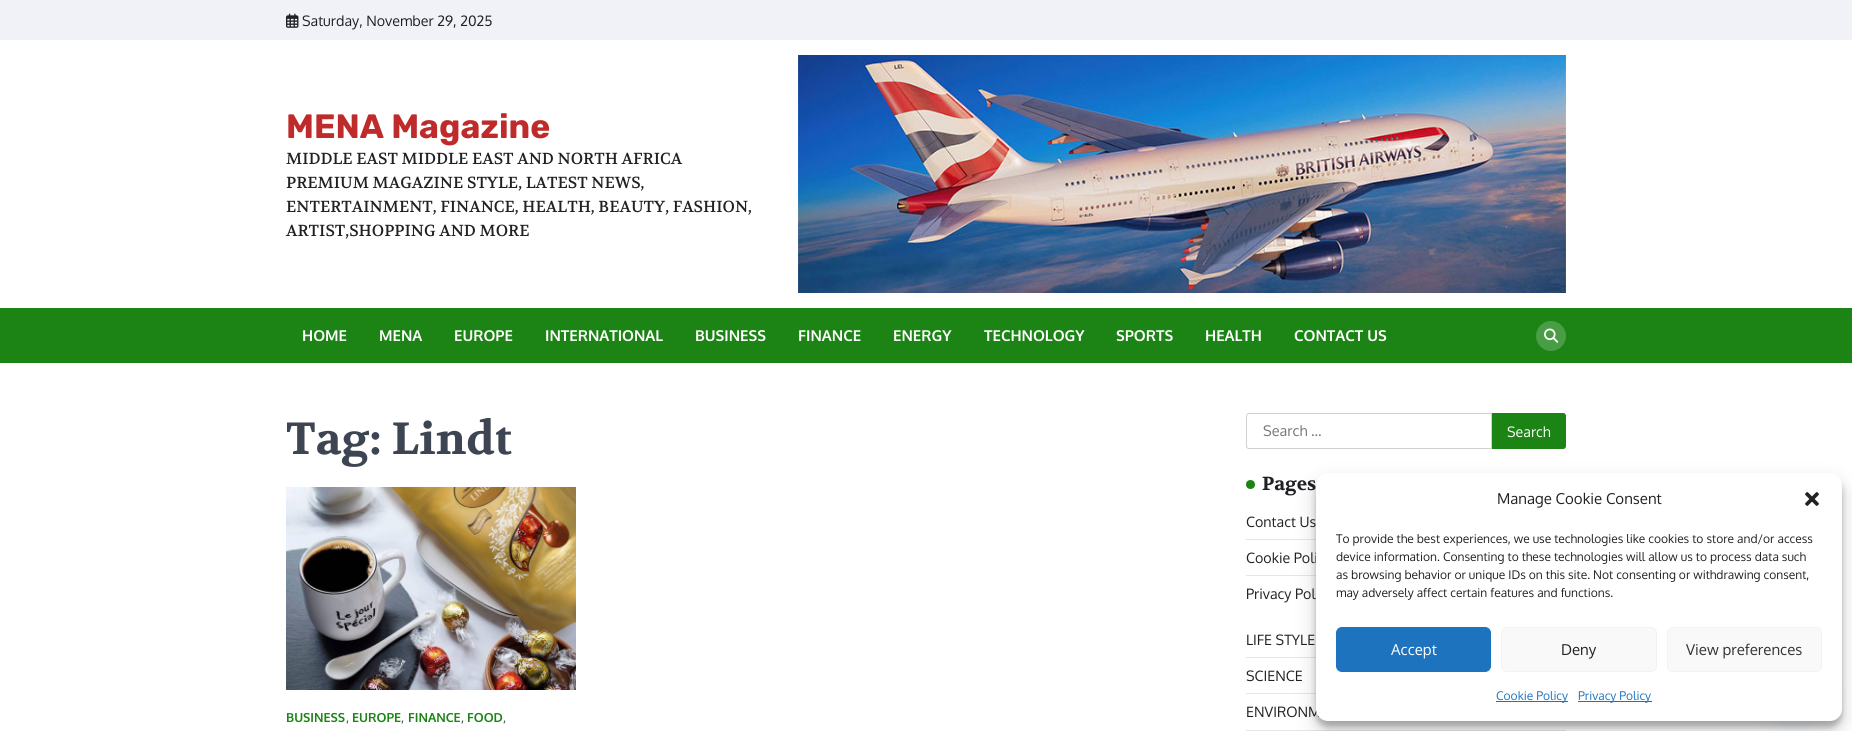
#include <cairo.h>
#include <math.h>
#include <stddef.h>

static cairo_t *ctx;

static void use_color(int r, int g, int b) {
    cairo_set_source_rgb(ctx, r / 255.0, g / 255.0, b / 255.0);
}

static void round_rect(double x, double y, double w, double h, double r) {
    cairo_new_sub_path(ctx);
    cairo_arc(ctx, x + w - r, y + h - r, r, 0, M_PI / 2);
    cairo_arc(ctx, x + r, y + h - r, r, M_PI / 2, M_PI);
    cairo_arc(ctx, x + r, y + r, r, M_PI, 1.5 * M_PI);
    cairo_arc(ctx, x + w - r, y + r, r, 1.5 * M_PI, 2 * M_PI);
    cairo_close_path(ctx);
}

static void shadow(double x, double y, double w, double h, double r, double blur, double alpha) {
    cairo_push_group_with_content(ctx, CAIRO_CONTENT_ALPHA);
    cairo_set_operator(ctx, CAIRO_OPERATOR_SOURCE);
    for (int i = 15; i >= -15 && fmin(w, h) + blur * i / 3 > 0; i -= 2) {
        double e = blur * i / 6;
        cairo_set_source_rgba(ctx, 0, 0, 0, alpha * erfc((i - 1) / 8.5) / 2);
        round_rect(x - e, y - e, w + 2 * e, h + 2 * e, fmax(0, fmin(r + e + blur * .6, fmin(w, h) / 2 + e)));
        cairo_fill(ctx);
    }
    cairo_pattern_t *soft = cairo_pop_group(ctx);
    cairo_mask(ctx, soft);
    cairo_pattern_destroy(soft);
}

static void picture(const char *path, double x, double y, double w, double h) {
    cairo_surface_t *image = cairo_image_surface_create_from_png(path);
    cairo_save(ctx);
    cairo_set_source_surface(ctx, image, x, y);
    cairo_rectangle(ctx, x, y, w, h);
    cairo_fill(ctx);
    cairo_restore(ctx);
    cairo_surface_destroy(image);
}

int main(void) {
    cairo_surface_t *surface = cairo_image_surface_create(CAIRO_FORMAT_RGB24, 1852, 731);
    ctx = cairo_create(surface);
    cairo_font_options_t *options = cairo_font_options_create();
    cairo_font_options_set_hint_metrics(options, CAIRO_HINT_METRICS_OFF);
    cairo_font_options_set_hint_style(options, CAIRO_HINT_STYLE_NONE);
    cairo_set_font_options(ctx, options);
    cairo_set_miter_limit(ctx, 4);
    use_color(255, 255, 255);
    cairo_paint(ctx);
    use_color(240, 242, 247);
    cairo_rectangle(ctx, 0, 0, 1852, 40);
    cairo_fill(ctx);
    picture("img1.png", 286, 13, 13, 15);
    cairo_select_font_face(ctx, "Oxygen", CAIRO_FONT_SLANT_NORMAL, CAIRO_FONT_WEIGHT_NORMAL);
    cairo_set_font_size(ctx, 14.25);
    use_color(32, 33, 36);
    cairo_move_to(ctx, 302, 26);
    cairo_show_text(ctx, "Saturday, November 29, 2025");
    cairo_select_font_face(ctx, "Rubik", CAIRO_FONT_SLANT_NORMAL, CAIRO_FONT_WEIGHT_BOLD);
    cairo_set_font_size(ctx, 33.75);
    use_color(191, 43, 43);
    cairo_move_to(ctx, 286, 138);
    cairo_show_text(ctx, "MENA Magazine");
    cairo_select_font_face(ctx, "Volkhov", CAIRO_FONT_SLANT_NORMAL, CAIRO_FONT_WEIGHT_NORMAL);
    cairo_set_font_size(ctx, 16);
    use_color(32, 33, 36);
    cairo_move_to(ctx, 286, 164);
    cairo_show_text(ctx, "MIDDLE EAST MIDDLE EAST AND NORTH AFRICA");
    cairo_move_to(ctx, 286, 188);
    cairo_show_text(ctx, "PREMIUM MAGAZINE STYLE, LATEST NEWS,");
    cairo_move_to(ctx, 286, 212);
    cairo_show_text(ctx, "ENTERTAINMENT, FINANCE, HEALTH, BEAUTY, FASHION,");
    cairo_move_to(ctx, 286, 236);
    cairo_show_text(ctx, "ARTIST,SHOPPING AND MORE");
    picture("img2.png", 798, 55, 768, 238);
    use_color(27, 132, 21);
    cairo_rectangle(ctx, 0, 308, 1852, 55);
    cairo_fill(ctx);
    cairo_select_font_face(ctx, "Oxygen", CAIRO_FONT_SLANT_NORMAL, CAIRO_FONT_WEIGHT_BOLD);
    cairo_set_font_size(ctx, 15);
    use_color(255, 255, 255);
    cairo_move_to(ctx, 302, 341);
    cairo_show_text(ctx, "HOME");
    cairo_move_to(ctx, 379, 341);
    cairo_show_text(ctx, "MENA");
    cairo_move_to(ctx, 454, 341);
    cairo_show_text(ctx, "EUROPE");
    cairo_move_to(ctx, 545, 341);
    cairo_show_text(ctx, "INTERNATIONAL");
    cairo_move_to(ctx, 695, 341);
    cairo_show_text(ctx, "BUSINESS");
    cairo_move_to(ctx, 798, 341);
    cairo_show_text(ctx, "FINANCE");
    cairo_move_to(ctx, 893, 341);
    cairo_show_text(ctx, "ENERGY");
    cairo_move_to(ctx, 984, 341);
    cairo_show_text(ctx, "TECHNOLOGY");
    cairo_move_to(ctx, 1116, 341);
    cairo_show_text(ctx, "SPORTS");
    cairo_move_to(ctx, 1205, 341);
    cairo_show_text(ctx, "HEALTH");
    cairo_move_to(ctx, 1294, 341);
    cairo_show_text(ctx, "CONTACT US");
    use_color(73, 157, 68);
    cairo_new_path(ctx);
    cairo_arc(ctx, 1551, 336, 15, 0, 2 * M_PI);
    cairo_fill(ctx);
    picture("img3.png", 1544, 328, 15, 15);
    cairo_select_font_face(ctx, "Volkhov", CAIRO_FONT_SLANT_NORMAL, CAIRO_FONT_WEIGHT_BOLD);
    cairo_set_font_size(ctx, 45);
    use_color(61, 68, 82);
    cairo_move_to(ctx, 286, 454);
    cairo_show_text(ctx, "Tag: Lindt");
    picture("img4.png", 286, 487, 290, 203);
    cairo_select_font_face(ctx, "Oxygen", CAIRO_FONT_SLANT_NORMAL, CAIRO_FONT_WEIGHT_BOLD);
    cairo_set_font_size(ctx, 12.5);
    use_color(27, 132, 21);
    cairo_move_to(ctx, 286, 722);
    cairo_show_text(ctx, "BUSINESS");
    cairo_select_font_face(ctx, "Oxygen", CAIRO_FONT_SLANT_NORMAL, CAIRO_FONT_WEIGHT_NORMAL);
    use_color(61, 68, 82);
    cairo_move_to(ctx, 346, 722);
    cairo_show_text(ctx, ",");
    cairo_select_font_face(ctx, "Oxygen", CAIRO_FONT_SLANT_NORMAL, CAIRO_FONT_WEIGHT_BOLD);
    use_color(27, 132, 21);
    cairo_move_to(ctx, 352, 722);
    cairo_show_text(ctx, "EUROPE");
    cairo_select_font_face(ctx, "Oxygen", CAIRO_FONT_SLANT_NORMAL, CAIRO_FONT_WEIGHT_NORMAL);
    use_color(61, 68, 82);
    cairo_move_to(ctx, 401, 722);
    cairo_show_text(ctx, ",");
    cairo_select_font_face(ctx, "Oxygen", CAIRO_FONT_SLANT_NORMAL, CAIRO_FONT_WEIGHT_BOLD);
    use_color(27, 132, 21);
    cairo_move_to(ctx, 408, 722);
    cairo_show_text(ctx, "FINANCE");
    cairo_select_font_face(ctx, "Oxygen", CAIRO_FONT_SLANT_NORMAL, CAIRO_FONT_WEIGHT_NORMAL);
    use_color(61, 68, 82);
    cairo_move_to(ctx, 461, 722);
    cairo_show_text(ctx, ",");
    cairo_select_font_face(ctx, "Oxygen", CAIRO_FONT_SLANT_NORMAL, CAIRO_FONT_WEIGHT_BOLD);
    use_color(27, 132, 21);
    cairo_move_to(ctx, 467, 722);
    cairo_show_text(ctx, "FOOD");
    cairo_select_font_face(ctx, "Oxygen", CAIRO_FONT_SLANT_NORMAL, CAIRO_FONT_WEIGHT_NORMAL);
    use_color(61, 68, 82);
    cairo_move_to(ctx, 503, 722);
    cairo_show_text(ctx, ",");
    cairo_new_path(ctx);
    cairo_move_to(ctx, 1249, 413.5);
    cairo_line_to(ctx, 1491.5, 413.5);
    cairo_line_to(ctx, 1491.5, 448.5);
    cairo_line_to(ctx, 1249, 448.5);
    cairo_curve_to(ctx, 1247.5, 448.5, 1246.5, 447.5, 1246.5, 446);
    cairo_line_to(ctx, 1246.5, 416);
    cairo_curve_to(ctx, 1246.5, 414.5, 1247.5, 413.5, 1249, 413.5);
    cairo_close_path(ctx);
    use_color(211, 206, 210);
    cairo_set_line_width(ctx, 1);
    cairo_stroke(ctx);
    cairo_set_font_size(ctx, 14.5);
    use_color(117, 117, 117);
    cairo_move_to(ctx, 1263, 436);
    cairo_show_text(ctx, "Search …");
    use_color(27, 132, 21);
    cairo_new_path(ctx);
    cairo_move_to(ctx, 1492.5, 413.5);
    cairo_line_to(ctx, 1563, 413.5);
    cairo_curve_to(ctx, 1564.5, 413.5, 1565.5, 414.5, 1565.5, 416);
    cairo_line_to(ctx, 1565.5, 446);
    cairo_curve_to(ctx, 1565.5, 447.5, 1564.5, 448.5, 1563, 448.5);
    cairo_line_to(ctx, 1492.5, 448.5);
    cairo_close_path(ctx);
    cairo_fill_preserve(ctx);
    cairo_stroke(ctx);
    cairo_set_font_size(ctx, 14.25);
    use_color(255, 255, 255);
    cairo_move_to(ctx, 1507, 437);
    cairo_show_text(ctx, "Search");
    use_color(27, 132, 21);
    cairo_new_path(ctx);
    cairo_arc(ctx, 1250.5, 484.5, 4.5, 0, 2 * M_PI);
    cairo_fill(ctx);
    cairo_select_font_face(ctx, "Volkhov", CAIRO_FONT_SLANT_NORMAL, CAIRO_FONT_WEIGHT_BOLD);
    cairo_set_font_size(ctx, 19);
    use_color(32, 33, 36);
    cairo_move_to(ctx, 1262, 490);
    cairo_show_text(ctx, "Pages");
    use_color(230, 230, 230);
    cairo_rectangle(ctx, 1246, 539, 70, 1);
    cairo_fill(ctx);
    cairo_select_font_face(ctx, "Oxygen", CAIRO_FONT_SLANT_NORMAL, CAIRO_FONT_WEIGHT_NORMAL);
    cairo_set_font_size(ctx, 14.25);
    use_color(32, 33, 36);
    cairo_move_to(ctx, 1246, 527);
    cairo_show_text(ctx, "Contact Us");
    use_color(230, 230, 230);
    cairo_rectangle(ctx, 1246, 575, 70, 1);
    cairo_fill(ctx);
    use_color(32, 33, 36);
    cairo_move_to(ctx, 1246, 563);
    cairo_show_text(ctx, "Cookie Poli");
    cairo_move_to(ctx, 1246, 599);
    cairo_show_text(ctx, "Privacy Pol");
    use_color(230, 230, 230);
    cairo_rectangle(ctx, 1246, 657, 70, 1);
    cairo_fill(ctx);
    use_color(32, 33, 36);
    cairo_move_to(ctx, 1246, 645);
    cairo_show_text(ctx, "LIFE STYLE");
    use_color(230, 230, 230);
    cairo_rectangle(ctx, 1246, 693, 70, 1);
    cairo_fill(ctx);
    use_color(32, 33, 36);
    cairo_move_to(ctx, 1246, 681);
    cairo_show_text(ctx, "SCIENCE");
    use_color(230, 230, 230);
    cairo_rectangle(ctx, 1246, 730, 320, 1);
    cairo_fill(ctx);
    use_color(32, 33, 36);
    cairo_move_to(ctx, 1246, 717);
    cairo_show_text(ctx, "ENVIRONM");
    use_color(0, 0, 0);
    shadow(1316, 479, 526, 248, 12, 3, 0.23);
    shadow(1316, 483, 526, 248, 12, 10, 0.19);
    use_color(73, 104, 126);
    shadow(1769, 668, 54, 54, 27, 12, 0.16);
    use_color(255, 255, 255);
    round_rect(1316, 473, 526, 248, 12);
    cairo_fill(ctx);
    cairo_set_font_size(ctx, 15);
    use_color(32, 33, 36);
    cairo_move_to(ctx, 1497, 504);
    cairo_show_text(ctx, "Manage Cookie Consent");
    picture("img5.png", 1805, 492, 14, 14);
    cairo_set_font_size(ctx, 12);
    cairo_move_to(ctx, 1336, 543);
    cairo_show_text(ctx, "To provide the best experiences, we use technologies like cookies to store and/or access");
    cairo_move_to(ctx, 1336, 561);
    cairo_show_text(ctx, "device information. Consenting to these technologies will allow us to process data such");
    cairo_move_to(ctx, 1336, 579);
    cairo_show_text(ctx, "as browsing behavior or unique IDs on this site. Not consenting or withdrawing consent,");
    cairo_move_to(ctx, 1336, 597);
    cairo_show_text(ctx, "may adversely affect certain features and functions.");
    use_color(30, 115, 190);
    round_rect(1336.5, 627.5, 154, 44, 5.5);
    cairo_fill_preserve(ctx);
    cairo_stroke(ctx);
    cairo_set_font_size(ctx, 15);
    use_color(255, 255, 255);
    cairo_move_to(ctx, 1391, 655);
    cairo_show_text(ctx, "Accept");
    use_color(249, 249, 249);
    round_rect(1501.5, 627.5, 155, 44, 5.5);
    cairo_fill_preserve(ctx);
    use_color(242, 242, 242);
    cairo_stroke(ctx);
    use_color(32, 33, 36);
    cairo_move_to(ctx, 1561, 655);
    cairo_show_text(ctx, "Deny");
    use_color(249, 249, 249);
    round_rect(1667.5, 627.5, 154, 44, 5.5);
    cairo_fill_preserve(ctx);
    use_color(242, 242, 242);
    cairo_stroke(ctx);
    use_color(51, 51, 51);
    cairo_move_to(ctx, 1686, 655);
    cairo_show_text(ctx, "View preferences");
    use_color(30, 115, 190);
    cairo_rectangle(ctx, 1496, 701, 72, 1);
    cairo_fill(ctx);
    cairo_set_font_size(ctx, 12);
    cairo_move_to(ctx, 1496, 700);
    cairo_show_text(ctx, "Cookie Policy");
    cairo_rectangle(ctx, 1578, 701, 74, 1);
    cairo_fill(ctx);
    cairo_move_to(ctx, 1578, 700);
    cairo_show_text(ctx, "Privacy Policy");
    cairo_surface_write_to_png(surface, "result.png");
    cairo_font_options_destroy(options);
    cairo_destroy(ctx);
    cairo_surface_destroy(surface);
    return 0;
}
